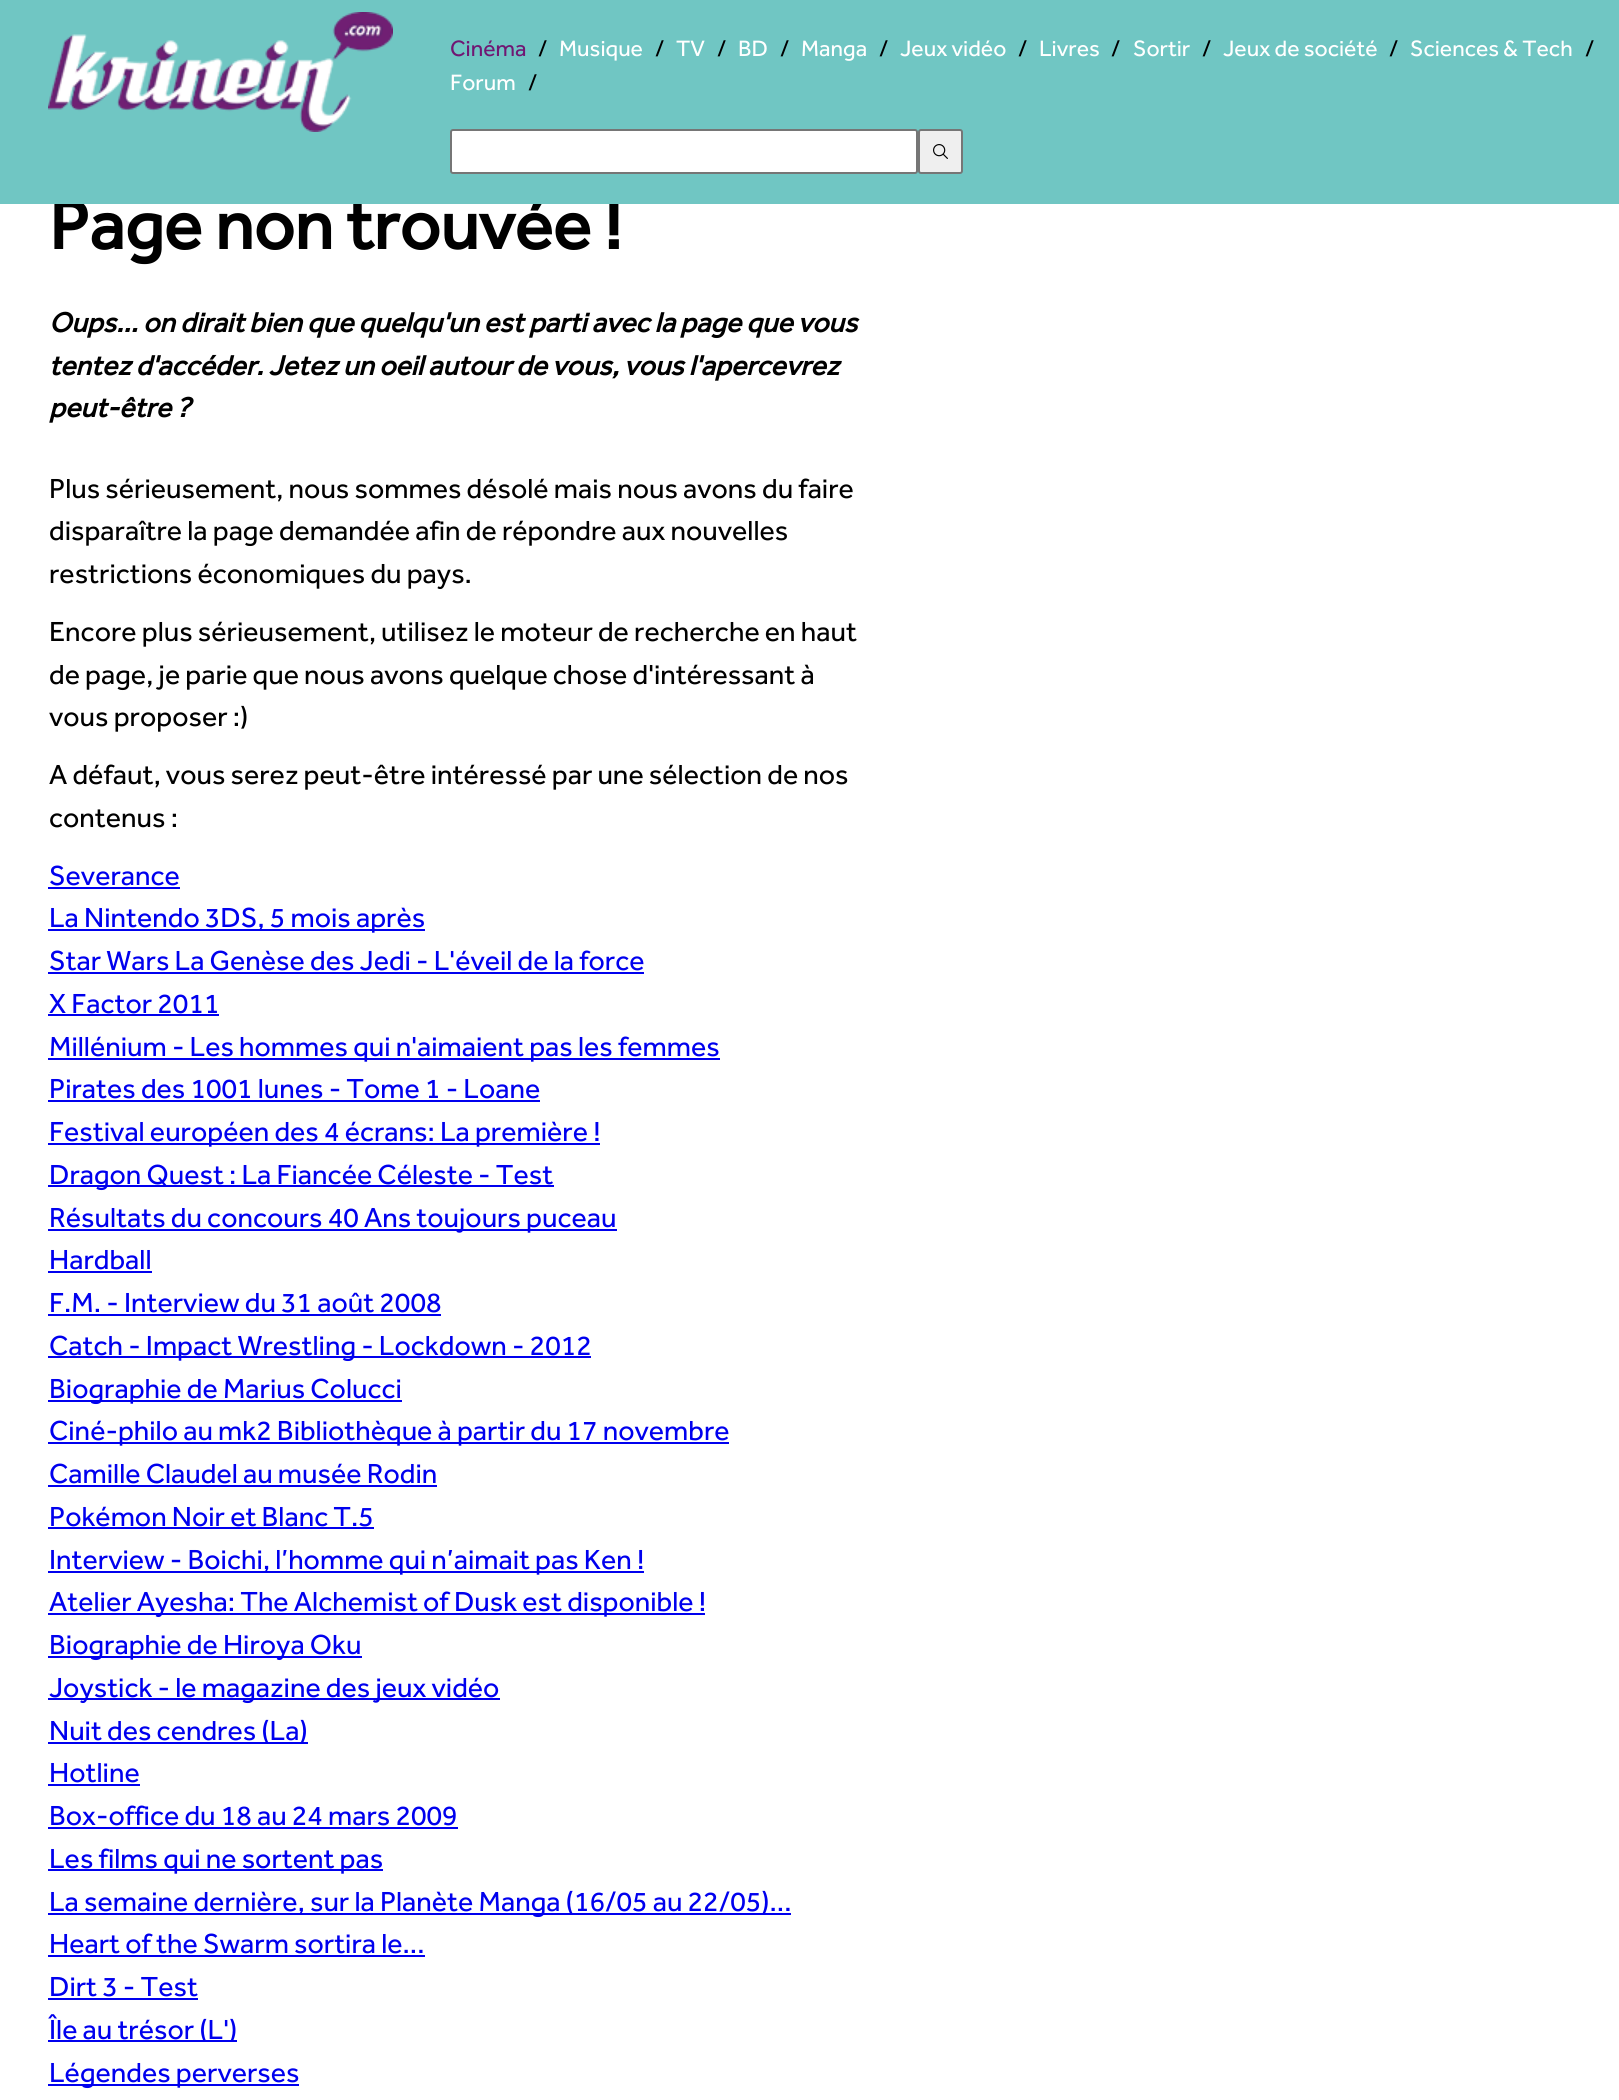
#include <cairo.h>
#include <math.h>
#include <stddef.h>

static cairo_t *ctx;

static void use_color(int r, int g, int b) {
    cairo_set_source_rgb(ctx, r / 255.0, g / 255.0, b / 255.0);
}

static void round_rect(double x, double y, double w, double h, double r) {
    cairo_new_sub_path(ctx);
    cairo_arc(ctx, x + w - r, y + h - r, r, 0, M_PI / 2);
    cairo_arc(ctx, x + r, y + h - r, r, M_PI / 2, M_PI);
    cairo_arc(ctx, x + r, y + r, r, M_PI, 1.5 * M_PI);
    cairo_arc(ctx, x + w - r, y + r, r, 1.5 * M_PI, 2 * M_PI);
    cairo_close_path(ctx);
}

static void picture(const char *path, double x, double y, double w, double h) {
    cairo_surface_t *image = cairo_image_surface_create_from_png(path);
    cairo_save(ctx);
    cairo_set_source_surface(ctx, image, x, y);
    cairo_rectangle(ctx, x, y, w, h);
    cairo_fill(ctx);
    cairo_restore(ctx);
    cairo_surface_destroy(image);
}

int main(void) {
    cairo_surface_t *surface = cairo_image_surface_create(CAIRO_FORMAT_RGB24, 1619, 2100);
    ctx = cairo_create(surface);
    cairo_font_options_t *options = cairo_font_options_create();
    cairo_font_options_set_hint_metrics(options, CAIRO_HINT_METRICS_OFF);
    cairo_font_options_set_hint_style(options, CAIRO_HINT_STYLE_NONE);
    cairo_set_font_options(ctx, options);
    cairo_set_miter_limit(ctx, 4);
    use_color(255, 255, 255);
    cairo_paint(ctx);
    cairo_select_font_face(ctx, "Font", CAIRO_FONT_SLANT_NORMAL, CAIRO_FONT_WEIGHT_BOLD);
    cairo_set_font_size(ctx, 71.25);
    use_color(0, 0, 0);
    cairo_move_to(ctx, 49, 249);
    cairo_show_text(ctx, "Page non trouvée !");
    use_color(112, 198, 195);
    cairo_rectangle(ctx, 0, 0, 1619, 204);
    cairo_fill(ctx);
    picture("img1.png", 48, 12, 345, 120);
    cairo_select_font_face(ctx, "Font", CAIRO_FONT_SLANT_NORMAL, CAIRO_FONT_WEIGHT_NORMAL);
    cairo_set_font_size(ctx, 23);
    use_color(112, 23, 115);
    cairo_move_to(ctx, 450, 56);
    cairo_show_text(ctx, "Cinéma");
    use_color(0, 0, 0);
    cairo_move_to(ctx, 538, 56);
    cairo_show_text(ctx, "/");
    use_color(255, 255, 255);
    cairo_move_to(ctx, 559, 56);
    cairo_show_text(ctx, "Musique");
    use_color(0, 0, 0);
    cairo_move_to(ctx, 655, 56);
    cairo_show_text(ctx, "/");
    use_color(255, 255, 255);
    cairo_move_to(ctx, 676, 56);
    cairo_show_text(ctx, "TV");
    use_color(0, 0, 0);
    cairo_move_to(ctx, 717, 56);
    cairo_show_text(ctx, "/");
    use_color(255, 255, 255);
    cairo_move_to(ctx, 738, 56);
    cairo_show_text(ctx, "BD");
    use_color(0, 0, 0);
    cairo_move_to(ctx, 780, 56);
    cairo_show_text(ctx, "/");
    use_color(255, 255, 255);
    cairo_move_to(ctx, 801, 56);
    cairo_show_text(ctx, "Manga");
    use_color(0, 0, 0);
    cairo_move_to(ctx, 879, 56);
    cairo_show_text(ctx, "/");
    use_color(255, 255, 255);
    cairo_move_to(ctx, 900, 56);
    cairo_show_text(ctx, "Jeux vidéo");
    use_color(0, 0, 0);
    cairo_move_to(ctx, 1018, 56);
    cairo_show_text(ctx, "/");
    use_color(255, 255, 255);
    cairo_move_to(ctx, 1039, 56);
    cairo_show_text(ctx, "Livres");
    use_color(0, 0, 0);
    cairo_move_to(ctx, 1111, 56);
    cairo_show_text(ctx, "/");
    use_color(255, 255, 255);
    cairo_move_to(ctx, 1133, 56);
    cairo_show_text(ctx, "Sortir");
    use_color(0, 0, 0);
    cairo_move_to(ctx, 1202, 56);
    cairo_show_text(ctx, "/");
    use_color(255, 255, 255);
    cairo_move_to(ctx, 1223, 56);
    cairo_show_text(ctx, "Jeux de société");
    use_color(0, 0, 0);
    cairo_move_to(ctx, 1389, 56);
    cairo_show_text(ctx, "/");
    use_color(255, 255, 255);
    cairo_move_to(ctx, 1410, 56);
    cairo_show_text(ctx, "Sciences & Tech");
    use_color(0, 0, 0);
    cairo_move_to(ctx, 1585, 56);
    cairo_show_text(ctx, "/");
    use_color(255, 255, 255);
    cairo_move_to(ctx, 450, 90);
    cairo_show_text(ctx, "Forum");
    use_color(0, 0, 0);
    cairo_move_to(ctx, 528, 90);
    cairo_show_text(ctx, "/");
    use_color(255, 255, 255);
    round_rect(451, 130, 466, 43, 2);
    cairo_fill_preserve(ctx);
    use_color(118, 118, 118);
    cairo_stroke(ctx);
    use_color(239, 239, 239);
    round_rect(919, 130, 43, 43, 2);
    cairo_fill_preserve(ctx);
    use_color(118, 118, 118);
    cairo_stroke(ctx);
    picture("img2.png", 933, 144, 15, 15);
    cairo_select_font_face(ctx, "Font", CAIRO_FONT_SLANT_ITALIC, CAIRO_FONT_WEIGHT_BOLD);
    cairo_set_font_size(ctx, 28.5);
    use_color(0, 0, 0);
    cairo_move_to(ctx, 49, 332);
    cairo_show_text(ctx, "Oups... on dirait bien que quelqu'un est parti avec la page que vous");
    cairo_move_to(ctx, 49, 375);
    cairo_show_text(ctx, "tentez d'accéder. Jetez un oeil autour de vous, vous l'apercevrez");
    cairo_move_to(ctx, 49, 417);
    cairo_show_text(ctx, "peut-être ?");
    cairo_select_font_face(ctx, "Font", CAIRO_FONT_SLANT_NORMAL, CAIRO_FONT_WEIGHT_NORMAL);
    cairo_move_to(ctx, 49, 498);
    cairo_show_text(ctx, "Plus sérieusement, nous sommes désolé mais nous avons du faire");
    cairo_move_to(ctx, 49, 540);
    cairo_show_text(ctx, "disparaître la page demandée afin de répondre aux nouvelles");
    cairo_move_to(ctx, 49, 583);
    cairo_show_text(ctx, "restrictions économiques du pays.");
    cairo_move_to(ctx, 49, 641);
    cairo_show_text(ctx, "Encore plus sérieusement, utilisez le moteur de recherche en haut");
    cairo_move_to(ctx, 49, 684);
    cairo_show_text(ctx, "de page, je parie que nous avons quelque chose d'intéressant à");
    cairo_move_to(ctx, 49, 726);
    cairo_show_text(ctx, "vous proposer :)");
    cairo_move_to(ctx, 49, 784);
    cairo_show_text(ctx, "A défaut, vous serez peut-être intéressé par une sélection de nos");
    cairo_move_to(ctx, 49, 827);
    cairo_show_text(ctx, "contenus :");
    use_color(0, 0, 238);
    cairo_move_to(ctx, 49, 885);
    cairo_show_text(ctx, "Severance");
    cairo_rectangle(ctx, 48, 887, 132, 2);
    cairo_fill(ctx);
    cairo_rectangle(ctx, 48, 929, 377, 2);
    cairo_fill(ctx);
    cairo_move_to(ctx, 49, 927);
    cairo_show_text(ctx, "La Nintendo 3DS, 5 mois après");
    cairo_move_to(ctx, 49, 970);
    cairo_show_text(ctx, "Star Wars La Genèse des Jedi - L'éveil de la force");
    cairo_rectangle(ctx, 48, 972, 596, 2);
    cairo_fill(ctx);
    cairo_move_to(ctx, 49, 1013);
    cairo_show_text(ctx, "X Factor 2011");
    cairo_rectangle(ctx, 48, 1014, 171, 2);
    cairo_fill(ctx);
    cairo_rectangle(ctx, 48, 1058, 672, 2);
    cairo_fill(ctx);
    cairo_move_to(ctx, 49, 1056);
    cairo_show_text(ctx, "Millénium - Les hommes qui n'aimaient pas les femmes");
    cairo_move_to(ctx, 49, 1098);
    cairo_show_text(ctx, "Pirates des 1001 lunes - Tome 1 - Loane");
    cairo_rectangle(ctx, 48, 1100, 492, 2);
    cairo_fill(ctx);
    cairo_rectangle(ctx, 48, 1143, 552, 2);
    cairo_fill(ctx);
    cairo_move_to(ctx, 49, 1141);
    cairo_show_text(ctx, "Festival européen des 4 écrans: La première !");
    cairo_rectangle(ctx, 48, 1185, 506, 2);
    cairo_fill(ctx);
    cairo_move_to(ctx, 49, 1184);
    cairo_show_text(ctx, "Dragon Quest : La Fiancée Céleste - Test");
    cairo_rectangle(ctx, 48, 1229, 569, 2);
    cairo_fill(ctx);
    cairo_move_to(ctx, 49, 1227);
    cairo_show_text(ctx, "Résultats du concours 40 Ans toujours puceau");
    cairo_move_to(ctx, 49, 1269);
    cairo_show_text(ctx, "Hardball");
    cairo_rectangle(ctx, 48, 1271, 104, 2);
    cairo_fill(ctx);
    cairo_move_to(ctx, 49, 1312);
    cairo_show_text(ctx, "F.M. - Interview du 31 août 2008");
    cairo_rectangle(ctx, 48, 1314, 393, 2);
    cairo_fill(ctx);
    cairo_rectangle(ctx, 48, 1356, 543, 2);
    cairo_fill(ctx);
    cairo_move_to(ctx, 49, 1355);
    cairo_show_text(ctx, "Catch - Impact Wrestling - Lockdown - 2012");
    cairo_rectangle(ctx, 48, 1400, 354, 2);
    cairo_fill(ctx);
    cairo_move_to(ctx, 49, 1398);
    cairo_show_text(ctx, "Biographie de Marius Colucci");
    cairo_rectangle(ctx, 48, 1442, 681, 2);
    cairo_fill(ctx);
    cairo_move_to(ctx, 49, 1440);
    cairo_show_text(ctx, "Ciné-philo au mk2 Bibliothèque à partir du 17 novembre");
    cairo_move_to(ctx, 49, 1483);
    cairo_show_text(ctx, "Camille Claudel au musée Rodin");
    cairo_rectangle(ctx, 48, 1485, 389, 2);
    cairo_fill(ctx);
    cairo_move_to(ctx, 49, 1526);
    cairo_show_text(ctx, "Pokémon Noir et Blanc T.5");
    cairo_rectangle(ctx, 48, 1527, 326, 2);
    cairo_fill(ctx);
    cairo_rectangle(ctx, 48, 1571, 596, 2);
    cairo_fill(ctx);
    cairo_move_to(ctx, 49, 1569);
    cairo_show_text(ctx, "Interview - Boichi, l’homme qui n’aimait pas Ken !");
    cairo_rectangle(ctx, 48, 1613, 657, 2);
    cairo_fill(ctx);
    cairo_move_to(ctx, 49, 1611);
    cairo_show_text(ctx, "Atelier Ayesha: The Alchemist of Dusk est disponible !");
    cairo_rectangle(ctx, 48, 1656, 314, 2);
    cairo_fill(ctx);
    cairo_move_to(ctx, 49, 1654);
    cairo_show_text(ctx, "Biographie de Hiroya Oku");
    cairo_rectangle(ctx, 48, 1698, 452, 2);
    cairo_fill(ctx);
    cairo_move_to(ctx, 49, 1697);
    cairo_show_text(ctx, "Joystick - le magazine des jeux vidéo");
    cairo_rectangle(ctx, 48, 1742, 260, 2);
    cairo_fill(ctx);
    cairo_move_to(ctx, 49, 1740);
    cairo_show_text(ctx, "Nuit des cendres (La)");
    cairo_move_to(ctx, 49, 1782);
    cairo_show_text(ctx, "Hotline");
    cairo_rectangle(ctx, 48, 1784, 92, 2);
    cairo_fill(ctx);
    cairo_move_to(ctx, 49, 1825);
    cairo_show_text(ctx, "Box-office du 18 au 24 mars 2009");
    cairo_rectangle(ctx, 48, 1827, 410, 2);
    cairo_fill(ctx);
    cairo_rectangle(ctx, 48, 1869, 335, 2);
    cairo_fill(ctx);
    cairo_move_to(ctx, 49, 1868);
    cairo_show_text(ctx, "Les films qui ne sortent pas");
    cairo_rectangle(ctx, 48, 1913, 743, 2);
    cairo_fill(ctx);
    cairo_move_to(ctx, 49, 1911);
    cairo_show_text(ctx, "La semaine dernière, sur la Planète Manga (16/05 au 22/05)...");
    cairo_move_to(ctx, 49, 1953);
    cairo_show_text(ctx, "Heart of the Swarm sortira le...");
    cairo_rectangle(ctx, 48, 1955, 377, 2);
    cairo_fill(ctx);
    cairo_move_to(ctx, 49, 1996);
    cairo_show_text(ctx, "Dirt 3 - Test");
    cairo_rectangle(ctx, 48, 1998, 150, 2);
    cairo_fill(ctx);
    cairo_rectangle(ctx, 48, 2040, 189, 2);
    cairo_fill(ctx);
    cairo_move_to(ctx, 49, 2039);
    cairo_show_text(ctx, "Île au trésor (L')");
    cairo_rectangle(ctx, 48, 2084, 251, 2);
    cairo_fill(ctx);
    cairo_move_to(ctx, 49, 2082);
    cairo_show_text(ctx, "Légendes perverses");
    cairo_surface_write_to_png(surface, "result.png");
    cairo_font_options_destroy(options);
    cairo_destroy(ctx);
    cairo_surface_destroy(surface);
    return 0;
}
